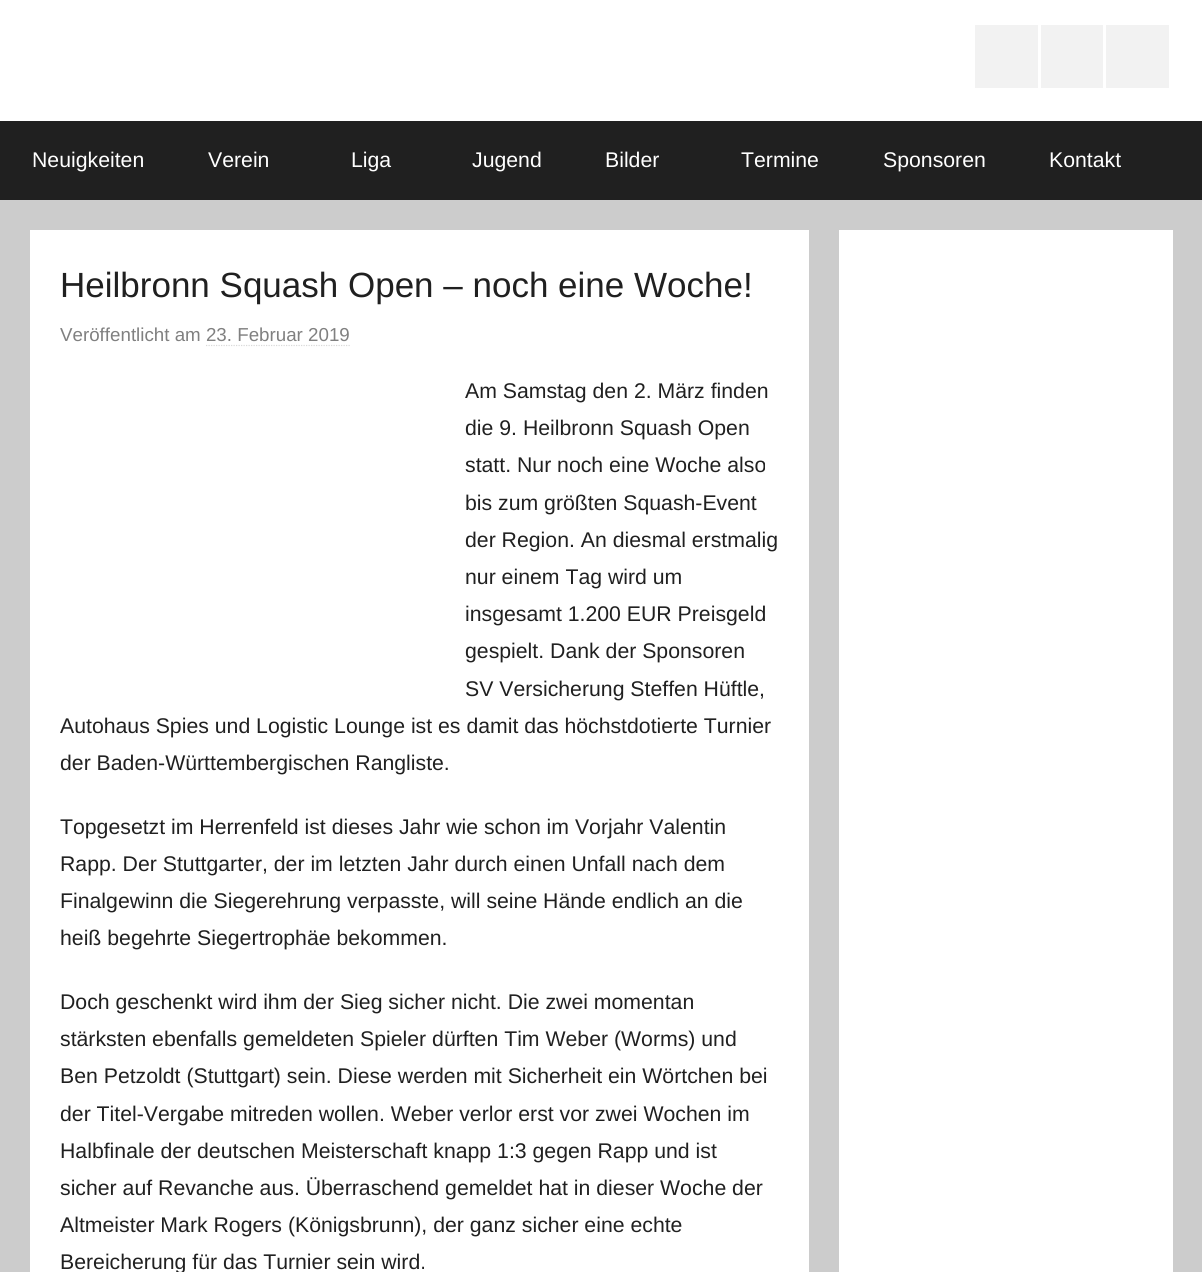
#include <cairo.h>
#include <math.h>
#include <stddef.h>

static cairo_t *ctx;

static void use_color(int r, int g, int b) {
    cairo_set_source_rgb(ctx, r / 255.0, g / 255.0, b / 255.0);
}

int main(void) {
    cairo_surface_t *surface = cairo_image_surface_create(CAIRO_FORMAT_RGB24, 1202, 1272);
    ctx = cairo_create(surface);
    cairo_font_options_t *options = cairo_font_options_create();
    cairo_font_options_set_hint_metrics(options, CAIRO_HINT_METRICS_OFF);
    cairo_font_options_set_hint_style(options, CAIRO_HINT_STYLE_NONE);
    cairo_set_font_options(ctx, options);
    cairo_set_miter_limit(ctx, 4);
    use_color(204, 204, 204);
    cairo_paint(ctx);
    use_color(255, 255, 255);
    cairo_rectangle(ctx, 0, 0, 1202, 121);
    cairo_fill(ctx);
    use_color(242, 242, 242);
    cairo_rectangle(ctx, 975, 25, 63, 63);
    cairo_fill(ctx);
    cairo_rectangle(ctx, 1041, 25, 62, 63);
    cairo_fill(ctx);
    cairo_rectangle(ctx, 1106, 25, 63, 63);
    cairo_fill(ctx);
    use_color(32, 32, 32);
    cairo_rectangle(ctx, 0, 121, 1202, 79);
    cairo_fill(ctx);
    cairo_select_font_face(ctx, "Liberation Sans", CAIRO_FONT_SLANT_NORMAL, CAIRO_FONT_WEIGHT_NORMAL);
    cairo_set_font_size(ctx, 21.25);
    use_color(255, 255, 255);
    cairo_move_to(ctx, 32, 167);
    cairo_show_text(ctx, "Neuigkeiten");
    cairo_move_to(ctx, 208, 167);
    cairo_show_text(ctx, "Verein");
    cairo_move_to(ctx, 351, 167);
    cairo_show_text(ctx, "Liga");
    cairo_move_to(ctx, 472, 167);
    cairo_show_text(ctx, "Jugend");
    cairo_move_to(ctx, 605, 167);
    cairo_show_text(ctx, "Bilder");
    cairo_move_to(ctx, 741, 167);
    cairo_show_text(ctx, "Termine");
    cairo_move_to(ctx, 883, 167);
    cairo_show_text(ctx, "Sponsoren");
    cairo_move_to(ctx, 1049, 167);
    cairo_show_text(ctx, "Kontakt");
    cairo_rectangle(ctx, 30, 230, 779, 1042);
    cairo_fill(ctx);
    cairo_set_font_size(ctx, 35);
    use_color(32, 32, 32);
    cairo_move_to(ctx, 60, 297);
    cairo_show_text(ctx, "Heilbronn Squash Open – noch eine Woche!");
    cairo_set_font_size(ctx, 18.75);
    use_color(128, 128, 128);
    cairo_move_to(ctx, 60, 341);
    cairo_show_text(ctx, "Veröffentlicht am 23. Februar 2019");
    cairo_new_path(ctx);
    cairo_move_to(ctx, 206, 345.5);
    cairo_line_to(ctx, 350, 345.5);
    use_color(217, 217, 217);
    cairo_set_line_width(ctx, 1.2);
    cairo_set_dash(ctx, (double[]){1.25, 1.25}, 2, 0);
    cairo_stroke(ctx);
    cairo_set_font_size(ctx, 21.25);
    use_color(32, 32, 32);
    cairo_move_to(ctx, 465, 398);
    cairo_show_text(ctx, "Am Samstag den 2. März finden");
    cairo_move_to(ctx, 465, 435);
    cairo_show_text(ctx, "die 9. Heilbronn Squash Open");
    cairo_move_to(ctx, 465, 472);
    cairo_show_text(ctx, "statt. Nur noch eine Woche also");
    cairo_move_to(ctx, 465, 510);
    cairo_show_text(ctx, "bis zum größten Squash-Event");
    cairo_move_to(ctx, 465, 547);
    cairo_show_text(ctx, "der Region. An diesmal erstmalig");
    cairo_move_to(ctx, 465, 584);
    cairo_show_text(ctx, "nur einem Tag wird um");
    cairo_move_to(ctx, 465, 621);
    cairo_show_text(ctx, "insgesamt 1.200 EUR Preisgeld");
    cairo_move_to(ctx, 465, 658);
    cairo_show_text(ctx, "gespielt. Dank der Sponsoren");
    cairo_move_to(ctx, 465, 696);
    cairo_show_text(ctx, "SV Versicherung Steffen Hüftle,");
    cairo_move_to(ctx, 60, 733);
    cairo_show_text(ctx, "Autohaus Spies und Logistic Lounge ist es damit das höchstdotierte Turnier");
    cairo_move_to(ctx, 60, 770);
    cairo_show_text(ctx, "der Baden-Württembergischen Rangliste.");
    cairo_move_to(ctx, 60, 834);
    cairo_show_text(ctx, "Topgesetzt im Herrenfeld ist dieses Jahr wie schon im Vorjahr Valentin");
    cairo_move_to(ctx, 60, 871);
    cairo_show_text(ctx, "Rapp. Der Stuttgarter, der im letzten Jahr durch einen Unfall nach dem");
    cairo_move_to(ctx, 60, 908);
    cairo_show_text(ctx, "Finalgewinn die Siegerehrung verpasste, will seine Hände endlich an die");
    cairo_move_to(ctx, 60, 945);
    cairo_show_text(ctx, "heiß begehrte Siegertrophäe bekommen.");
    cairo_move_to(ctx, 60, 1009);
    cairo_show_text(ctx, "Doch geschenkt wird ihm der Sieg sicher nicht. Die zwei momentan");
    cairo_move_to(ctx, 60, 1046);
    cairo_show_text(ctx, "stärksten ebenfalls gemeldeten Spieler dürften Tim Weber (Worms) und");
    cairo_move_to(ctx, 60, 1083);
    cairo_show_text(ctx, "Ben Petzoldt (Stuttgart) sein. Diese werden mit Sicherheit ein Wörtchen bei");
    cairo_move_to(ctx, 60, 1121);
    cairo_show_text(ctx, "der Titel-Vergabe mitreden wollen. Weber verlor erst vor zwei Wochen im");
    cairo_move_to(ctx, 60, 1158);
    cairo_show_text(ctx, "Halbfinale der deutschen Meisterschaft knapp 1:3 gegen Rapp und ist");
    cairo_move_to(ctx, 60, 1195);
    cairo_show_text(ctx, "sicher auf Revanche aus. Überraschend gemeldet hat in dieser Woche der");
    cairo_move_to(ctx, 60, 1232);
    cairo_show_text(ctx, "Altmeister Mark Rogers (Königsbrunn), der ganz sicher eine echte");
    cairo_move_to(ctx, 60, 1269);
    cairo_show_text(ctx, "Bereicherung für das Turnier sein wird.");
    use_color(255, 255, 255);
    cairo_rectangle(ctx, 839, 230, 334, 1042);
    cairo_fill(ctx);
    cairo_surface_write_to_png(surface, "result.png");
    cairo_font_options_destroy(options);
    cairo_destroy(ctx);
    cairo_surface_destroy(surface);
    return 0;
}
